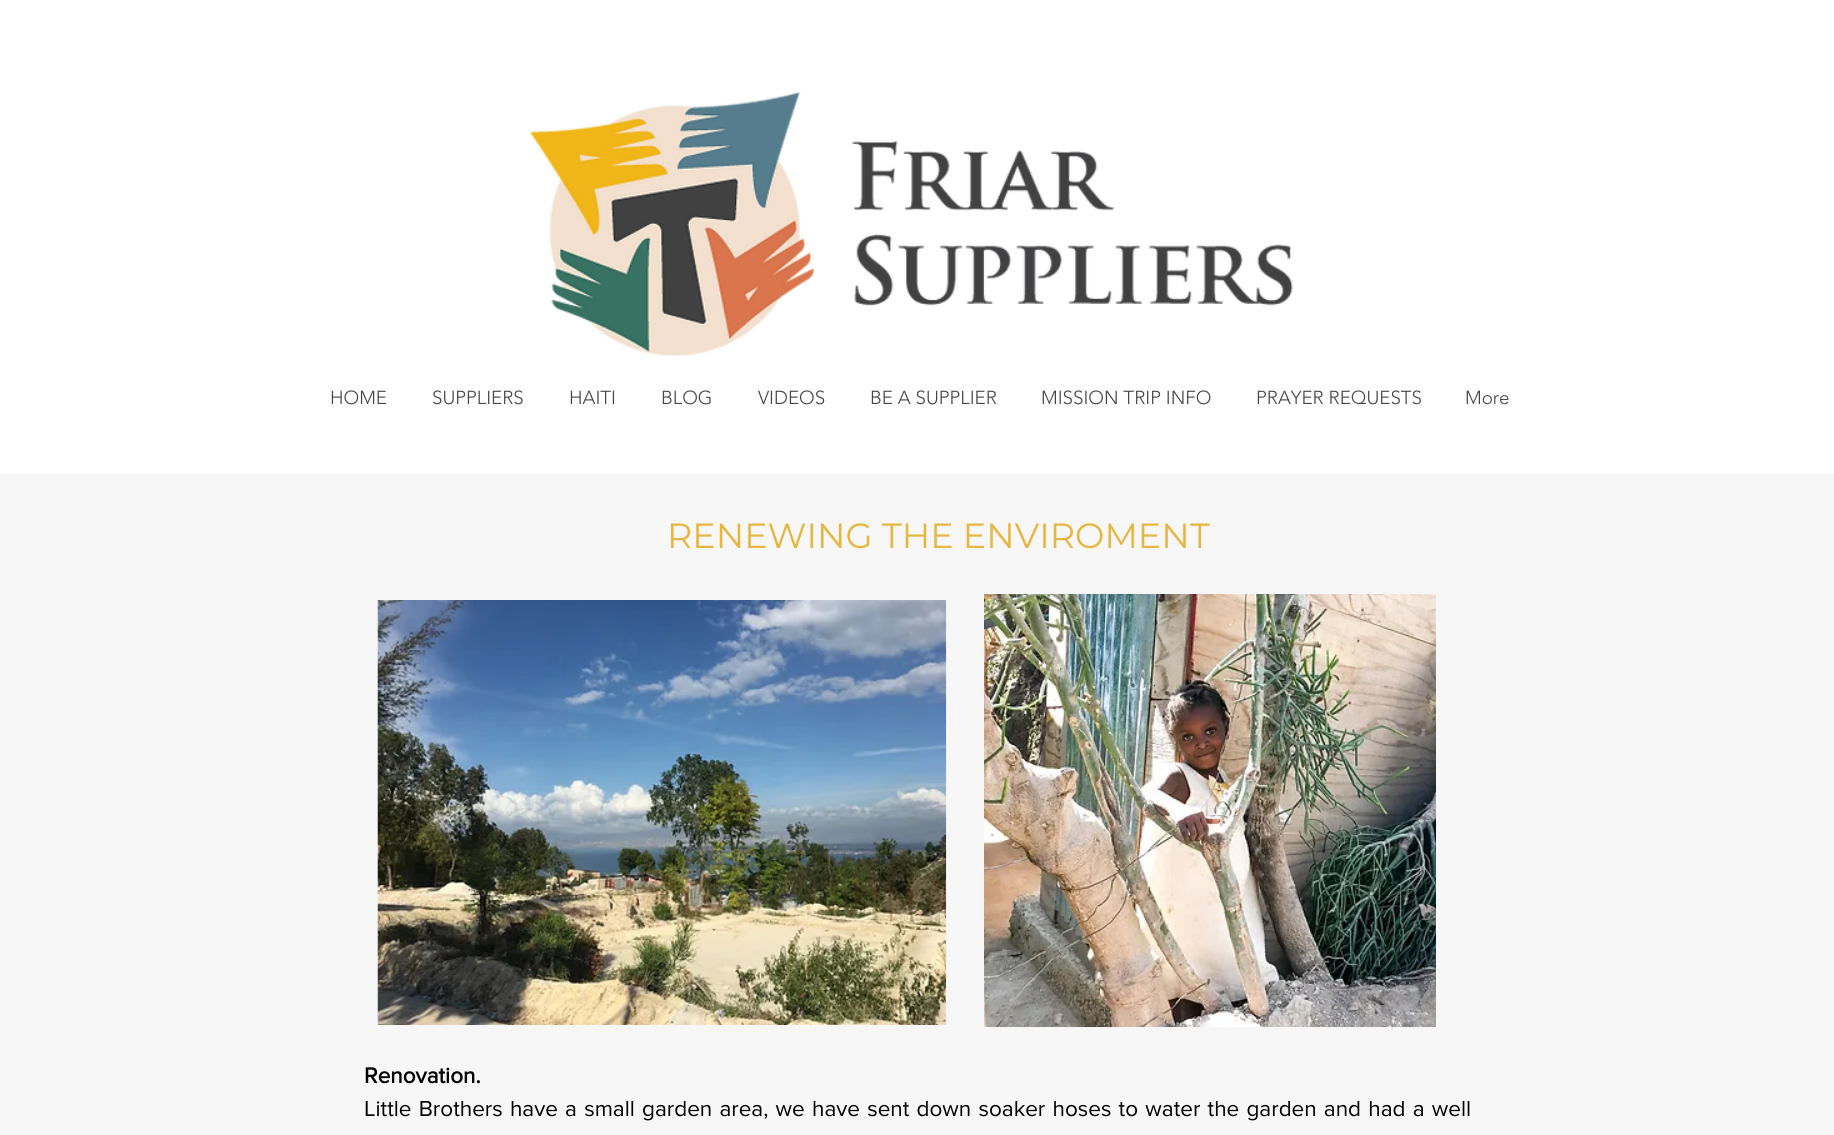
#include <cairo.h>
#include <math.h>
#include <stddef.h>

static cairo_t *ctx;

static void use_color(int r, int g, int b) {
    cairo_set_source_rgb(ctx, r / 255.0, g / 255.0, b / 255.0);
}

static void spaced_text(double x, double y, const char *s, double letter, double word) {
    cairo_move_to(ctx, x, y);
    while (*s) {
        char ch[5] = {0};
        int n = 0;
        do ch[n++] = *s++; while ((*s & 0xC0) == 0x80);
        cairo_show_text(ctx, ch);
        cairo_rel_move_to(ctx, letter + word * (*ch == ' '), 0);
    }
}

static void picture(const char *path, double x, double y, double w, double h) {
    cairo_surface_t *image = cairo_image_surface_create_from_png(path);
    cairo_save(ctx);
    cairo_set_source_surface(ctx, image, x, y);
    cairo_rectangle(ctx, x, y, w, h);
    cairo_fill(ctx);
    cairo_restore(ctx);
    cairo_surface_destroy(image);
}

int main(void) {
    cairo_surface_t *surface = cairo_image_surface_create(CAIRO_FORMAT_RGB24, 1834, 1135);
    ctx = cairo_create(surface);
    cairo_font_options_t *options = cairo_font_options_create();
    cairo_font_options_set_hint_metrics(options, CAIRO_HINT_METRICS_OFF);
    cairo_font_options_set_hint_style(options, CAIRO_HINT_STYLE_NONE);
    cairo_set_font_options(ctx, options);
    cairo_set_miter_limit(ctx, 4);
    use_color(247, 247, 247);
    cairo_paint(ctx);
    use_color(255, 255, 255);
    cairo_rectangle(ctx, 0, 0, 1834, 474);
    cairo_fill(ctx);
    picture("img1.png", 530, 91, 763, 266);
    cairo_select_font_face(ctx, "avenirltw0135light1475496 Light", CAIRO_FONT_SLANT_NORMAL, CAIRO_FONT_WEIGHT_NORMAL);
    cairo_set_font_size(ctx, 18.75);
    use_color(68, 68, 68);
    cairo_move_to(ctx, 330, 404);
    cairo_show_text(ctx, "HOME");
    cairo_move_to(ctx, 432, 404);
    cairo_show_text(ctx, "SUPPLIERS");
    cairo_move_to(ctx, 569, 404);
    cairo_show_text(ctx, "HAITI");
    cairo_move_to(ctx, 661, 404);
    cairo_show_text(ctx, "BLOG");
    cairo_move_to(ctx, 758, 404);
    cairo_show_text(ctx, "VIDEOS");
    cairo_move_to(ctx, 870, 404);
    cairo_show_text(ctx, "BE A SUPPLIER");
    cairo_move_to(ctx, 1041, 404);
    cairo_show_text(ctx, "MISSION TRIP INFO");
    cairo_move_to(ctx, 1256, 404);
    cairo_show_text(ctx, "PRAYER REQUESTS");
    cairo_move_to(ctx, 1465, 404);
    cairo_show_text(ctx, "More");
    cairo_select_font_face(ctx, "Montserrat", CAIRO_FONT_SLANT_NORMAL, CAIRO_FONT_WEIGHT_NORMAL);
    cairo_set_font_size(ctx, 35);
    use_color(230, 182, 62);
    cairo_move_to(ctx, 667, 548);
    cairo_show_text(ctx, "RENEWING THE ENVIROMENT");
    picture("img2.png", 377, 600, 570, 425);
    picture("img3.png", 984, 594, 452, 434);
    cairo_select_font_face(ctx, "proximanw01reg", CAIRO_FONT_SLANT_NORMAL, CAIRO_FONT_WEIGHT_BOLD);
    cairo_set_font_size(ctx, 22.5);
    use_color(0, 0, 0);
    cairo_move_to(ctx, 364, 1083);
    cairo_show_text(ctx, "Renovation.");
    cairo_select_font_face(ctx, "proximanw01reg", CAIRO_FONT_SLANT_NORMAL, CAIRO_FONT_WEIGHT_NORMAL);
    spaced_text(364, 1116, "Little Brothers have a small garden area, we have sent down soaker hoses to water the garden and had a well", 0, 1.4);
    cairo_surface_write_to_png(surface, "result.png");
    cairo_font_options_destroy(options);
    cairo_destroy(ctx);
    cairo_surface_destroy(surface);
    return 0;
}
